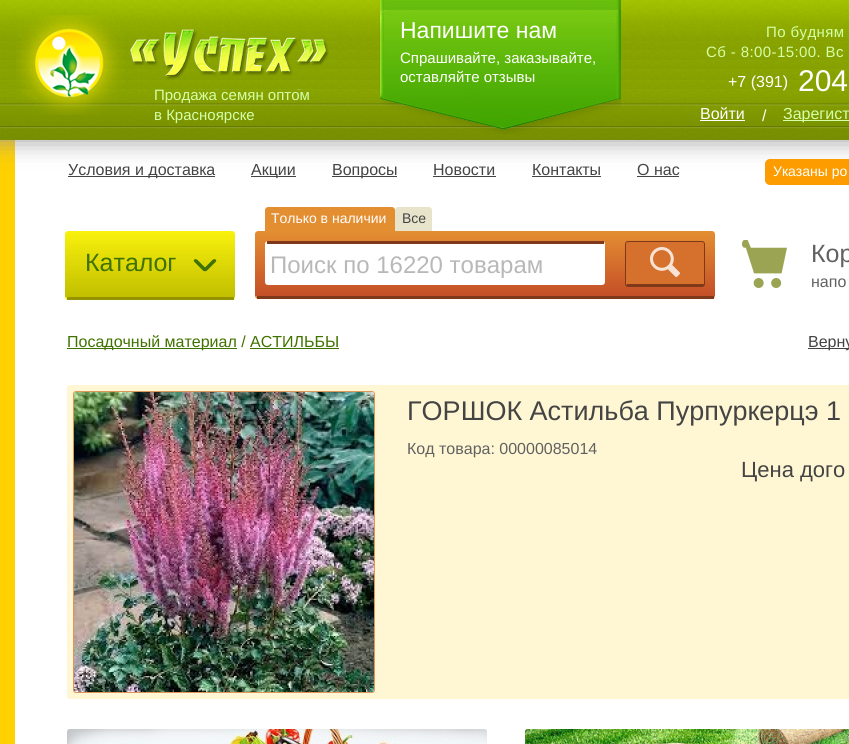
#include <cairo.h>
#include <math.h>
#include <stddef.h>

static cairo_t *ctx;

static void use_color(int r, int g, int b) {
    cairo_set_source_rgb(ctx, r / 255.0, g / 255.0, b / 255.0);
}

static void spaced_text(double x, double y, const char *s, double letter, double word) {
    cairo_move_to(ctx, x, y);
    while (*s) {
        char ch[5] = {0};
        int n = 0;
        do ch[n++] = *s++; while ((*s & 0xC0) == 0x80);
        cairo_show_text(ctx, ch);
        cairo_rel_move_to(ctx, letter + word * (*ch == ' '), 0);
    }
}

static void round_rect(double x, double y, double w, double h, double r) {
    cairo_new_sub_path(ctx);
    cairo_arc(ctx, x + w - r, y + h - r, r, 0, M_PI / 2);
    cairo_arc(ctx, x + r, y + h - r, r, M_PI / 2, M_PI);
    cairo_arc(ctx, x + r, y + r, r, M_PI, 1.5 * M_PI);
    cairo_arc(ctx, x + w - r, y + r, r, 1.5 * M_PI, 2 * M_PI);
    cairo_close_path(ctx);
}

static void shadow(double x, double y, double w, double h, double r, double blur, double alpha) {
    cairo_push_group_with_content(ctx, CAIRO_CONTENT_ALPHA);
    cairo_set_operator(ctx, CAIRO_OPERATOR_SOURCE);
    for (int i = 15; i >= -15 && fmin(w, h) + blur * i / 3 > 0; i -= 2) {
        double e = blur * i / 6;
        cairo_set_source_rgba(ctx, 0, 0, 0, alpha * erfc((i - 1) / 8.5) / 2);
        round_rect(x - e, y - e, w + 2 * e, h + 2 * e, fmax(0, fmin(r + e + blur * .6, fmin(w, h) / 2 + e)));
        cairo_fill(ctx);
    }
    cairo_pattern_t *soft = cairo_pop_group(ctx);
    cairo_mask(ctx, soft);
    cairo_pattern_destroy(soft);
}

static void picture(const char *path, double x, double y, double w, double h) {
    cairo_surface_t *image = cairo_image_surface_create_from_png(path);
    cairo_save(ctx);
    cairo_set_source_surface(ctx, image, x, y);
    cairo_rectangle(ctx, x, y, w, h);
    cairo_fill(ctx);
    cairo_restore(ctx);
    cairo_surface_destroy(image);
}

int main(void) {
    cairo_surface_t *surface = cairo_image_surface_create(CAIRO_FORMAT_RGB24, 849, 744);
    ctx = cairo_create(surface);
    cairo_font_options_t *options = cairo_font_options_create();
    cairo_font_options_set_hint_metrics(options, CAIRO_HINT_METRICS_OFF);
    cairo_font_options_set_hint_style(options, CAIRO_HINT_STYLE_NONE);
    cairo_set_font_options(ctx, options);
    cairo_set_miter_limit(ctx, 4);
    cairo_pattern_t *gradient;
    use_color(255, 255, 255);
    cairo_paint(ctx);
    use_color(255, 209, 0);
    cairo_rectangle(ctx, 0, 140, 15, 604);
    cairo_fill(ctx);
    use_color(153, 153, 153);
    shadow(-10, 20, 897, 120, 0, 12.5, 1);
    picture("img1.png", 0, 0, 849, 140);
    picture("img2.png", 16, 15, 313, 100);
    cairo_select_font_face(ctx, "Liberation Sans", CAIRO_FONT_SLANT_NORMAL, CAIRO_FONT_WEIGHT_NORMAL);
    cairo_set_font_size(ctx, 15);
    use_color(213, 255, 169);
    cairo_move_to(ctx, 154, 100);
    cairo_show_text(ctx, "Продажа семян оптом");
    cairo_move_to(ctx, 154, 120);
    cairo_show_text(ctx, "в Красноярске");
    picture("img3.png", 379, 0, 242, 134);
    cairo_set_font_size(ctx, 23);
    use_color(255, 255, 255);
    cairo_move_to(ctx, 400, 38);
    cairo_show_text(ctx, "Напишите нам");
    cairo_set_font_size(ctx, 15);
    cairo_move_to(ctx, 400, 63);
    cairo_show_text(ctx, "Спрашивайте, заказывайте,");
    cairo_move_to(ctx, 400, 82);
    cairo_show_text(ctx, "оставляйте отзывы");
    use_color(213, 255, 169);
    spaced_text(766, 37, "По будням", 0.4, 0);
    spaced_text(706, 57, "Сб - 8:00-15:00. Вс", 0.4, 0);
    cairo_set_font_size(ctx, 16);
    use_color(255, 255, 255);
    cairo_move_to(ctx, 728, 87);
    cairo_show_text(ctx, "+7 (391)");
    cairo_set_font_size(ctx, 30);
    cairo_move_to(ctx, 798, 91);
    cairo_show_text(ctx, "204");
    cairo_set_font_size(ctx, 16);
    cairo_move_to(ctx, 700, 119);
    cairo_show_text(ctx, "Войти");
    cairo_rectangle(ctx, 700, 120, 45, 1);
    cairo_fill(ctx);
    cairo_move_to(ctx, 762, 121);
    cairo_show_text(ctx, "/");
    use_color(213, 255, 169);
    cairo_rectangle(ctx, 783, 120, 66, 1);
    cairo_fill(ctx);
    cairo_move_to(ctx, 783, 119);
    cairo_show_text(ctx, "Зарегист");
    use_color(68, 68, 68);
    cairo_rectangle(ctx, 68, 176, 147, 1);
    cairo_fill(ctx);
    cairo_move_to(ctx, 68, 175);
    cairo_show_text(ctx, "Условия и доставка");
    cairo_rectangle(ctx, 251, 176, 45, 1);
    cairo_fill(ctx);
    cairo_move_to(ctx, 251, 175);
    cairo_show_text(ctx, "Акции");
    cairo_rectangle(ctx, 332, 176, 65, 1);
    cairo_fill(ctx);
    cairo_move_to(ctx, 332, 175);
    cairo_show_text(ctx, "Вопросы");
    cairo_move_to(ctx, 433, 175);
    cairo_show_text(ctx, "Новости");
    cairo_rectangle(ctx, 433, 176, 63, 1);
    cairo_fill(ctx);
    cairo_move_to(ctx, 532, 175);
    cairo_show_text(ctx, "Контакты");
    cairo_rectangle(ctx, 532, 176, 69, 1);
    cairo_fill(ctx);
    cairo_move_to(ctx, 637, 175);
    cairo_show_text(ctx, "О нас");
    cairo_rectangle(ctx, 637, 176, 42, 1);
    cairo_fill(ctx);
    use_color(252, 156, 0);
    round_rect(765, 159, 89, 26, 5);
    cairo_fill(ctx);
    cairo_set_font_size(ctx, 14);
    use_color(255, 255, 255);
    cairo_move_to(ctx, 773, 176);
    cairo_show_text(ctx, "Указаны ро");
    gradient = cairo_pattern_create_linear(150, 231, 150, 297);
    cairo_pattern_add_color_stop_rgba(gradient, 0, 0.976, 0.945, 0.051, 1);
    cairo_pattern_add_color_stop_rgba(gradient, 1, 0.757, 0.749, 0, 1);
    cairo_set_source(ctx, gradient);
    cairo_pattern_destroy(gradient);
    cairo_new_path(ctx);
    cairo_move_to(ctx, 68, 231);
    cairo_line_to(ctx, 232, 231);
    cairo_curve_to(ctx, 233.5, 231, 235, 232.5, 235, 234);
    cairo_line_to(ctx, 235, 297);
    cairo_line_to(ctx, 65, 297);
    cairo_line_to(ctx, 65, 234);
    cairo_curve_to(ctx, 65, 232.5, 66.5, 231, 68, 231);
    cairo_close_path(ctx);
    cairo_fill(ctx);
    gradient = cairo_pattern_create_linear(150, 297, 150, 363);
    cairo_pattern_add_color_stop_rgba(gradient, 0, 0.976, 0.945, 0.051, 1);
    cairo_pattern_add_color_stop_rgba(gradient, 1, 0.757, 0.749, 0, 1);
    cairo_set_source(ctx, gradient);
    cairo_pattern_destroy(gradient);
    cairo_new_path(ctx);
    cairo_move_to(ctx, 65, 297);
    cairo_line_to(ctx, 235, 297);
    cairo_curve_to(ctx, 235, 298.5, 233.5, 300, 232, 300);
    cairo_line_to(ctx, 68, 300);
    cairo_curve_to(ctx, 66.5, 300, 65, 298.5, 65, 297);
    cairo_close_path(ctx);
    cairo_fill(ctx);
    use_color(150, 147, 0);
    cairo_rectangle(ctx, 67, 297, 167, 3);
    cairo_fill(ctx);
    cairo_set_font_size(ctx, 25);
    use_color(64, 114, 0);
    cairo_move_to(ctx, 85, 271);
    cairo_show_text(ctx, "Каталог");
    picture("img4.png", 193, 259, 24, 13);
    gradient = cairo_pattern_create_linear(485, 231, 485, 296);
    cairo_pattern_add_color_stop_rgba(gradient, 0, 0.894, 0.557, 0.196, 1);
    cairo_pattern_add_color_stop_rgba(gradient, 1, 0.769, 0.31, 0.157, 1);
    cairo_set_source(ctx, gradient);
    cairo_pattern_destroy(gradient);
    cairo_new_path(ctx);
    cairo_move_to(ctx, 258, 231);
    cairo_line_to(ctx, 712, 231);
    cairo_curve_to(ctx, 713.5, 231, 715, 232.5, 715, 234);
    cairo_line_to(ctx, 715, 296);
    cairo_line_to(ctx, 255, 296);
    cairo_line_to(ctx, 255, 234);
    cairo_curve_to(ctx, 255, 232.5, 256.5, 231, 258, 231);
    cairo_close_path(ctx);
    cairo_fill(ctx);
    gradient = cairo_pattern_create_linear(485, 296, 485, 361);
    cairo_pattern_add_color_stop_rgba(gradient, 0, 0.894, 0.557, 0.196, 1);
    cairo_pattern_add_color_stop_rgba(gradient, 1, 0.769, 0.31, 0.157, 1);
    cairo_set_source(ctx, gradient);
    cairo_pattern_destroy(gradient);
    cairo_new_path(ctx);
    cairo_move_to(ctx, 255, 296);
    cairo_line_to(ctx, 715, 296);
    cairo_curve_to(ctx, 715, 297.5, 713.5, 299, 712, 299);
    cairo_line_to(ctx, 258, 299);
    cairo_curve_to(ctx, 256.5, 299, 255, 297.5, 255, 296);
    cairo_close_path(ctx);
    cairo_fill(ctx);
    use_color(128, 56, 27);
    cairo_rectangle(ctx, 257, 296, 457, 3);
    cairo_fill(ctx);
    use_color(228, 142, 50);
    cairo_new_path(ctx);
    cairo_move_to(ctx, 268, 207);
    cairo_line_to(ctx, 392, 207);
    cairo_curve_to(ctx, 393.5, 207, 395, 208.5, 395, 210);
    cairo_line_to(ctx, 395, 231);
    cairo_line_to(ctx, 265, 231);
    cairo_line_to(ctx, 265, 210);
    cairo_curve_to(ctx, 265, 208.5, 266.5, 207, 268, 207);
    cairo_close_path(ctx);
    cairo_fill(ctx);
    cairo_set_font_size(ctx, 14);
    use_color(255, 255, 255);
    cairo_move_to(ctx, 271, 223);
    cairo_show_text(ctx, "Только в наличии");
    use_color(232, 228, 203);
    cairo_new_path(ctx);
    cairo_move_to(ctx, 398, 207);
    cairo_line_to(ctx, 429, 207);
    cairo_curve_to(ctx, 430.5, 207, 432, 208.5, 432, 210);
    cairo_line_to(ctx, 432, 231);
    cairo_line_to(ctx, 395, 231);
    cairo_line_to(ctx, 395, 210);
    cairo_curve_to(ctx, 395, 208.5, 396.5, 207, 398, 207);
    cairo_close_path(ctx);
    cairo_fill(ctx);
    use_color(68, 68, 68);
    cairo_move_to(ctx, 402, 223);
    cairo_show_text(ctx, "Все");
    use_color(255, 255, 255);
    round_rect(265, 241, 340, 44, 3);
    cairo_fill(ctx);
    use_color(128, 56, 27);
    cairo_rectangle(ctx, 267, 241, 337, 3);
    cairo_fill(ctx);
    cairo_set_font_size(ctx, 24);
    use_color(184, 184, 184);
    cairo_move_to(ctx, 270, 273);
    cairo_show_text(ctx, "Поиск по 16220 товарам");
    use_color(213, 113, 45);
    cairo_new_path(ctx);
    cairo_move_to(ctx, 628, 242);
    cairo_line_to(ctx, 702, 242);
    cairo_curve_to(ctx, 703, 242, 704, 243, 704, 244);
    cairo_line_to(ctx, 704, 284);
    cairo_line_to(ctx, 626, 284);
    cairo_line_to(ctx, 626, 244);
    cairo_curve_to(ctx, 626, 243, 627, 242, 628, 242);
    cairo_close_path(ctx);
    cairo_fill(ctx);
    picture("img5.png", 650, 247, 30, 30);
    round_rect(625.5, 241.5, 79, 45, 2.5);
    use_color(128, 56, 27);
    cairo_set_line_width(ctx, 1);
    cairo_stroke(ctx);
    cairo_rectangle(ctx, 627, 284, 77, 2);
    cairo_fill(ctx);
    picture("img6.png", 742, 240, 45, 48);
    cairo_set_font_size(ctx, 25);
    use_color(97, 97, 97);
    cairo_move_to(ctx, 811, 262);
    cairo_show_text(ctx, "Кор");
    cairo_set_font_size(ctx, 16);
    cairo_move_to(ctx, 811, 287);
    cairo_show_text(ctx, "напо");
    use_color(64, 114, 0);
    cairo_rectangle(ctx, 67, 348, 170, 1);
    cairo_fill(ctx);
    cairo_move_to(ctx, 67, 347);
    cairo_show_text(ctx, "Посадочный материал / АСТИЛЬБЫ");
    cairo_rectangle(ctx, 250, 348, 89, 1);
    cairo_fill(ctx);
    use_color(68, 68, 68);
    cairo_rectangle(ctx, 808, 348, 41, 1);
    cairo_fill(ctx);
    cairo_move_to(ctx, 808, 347);
    cairo_show_text(ctx, "Верну");
    use_color(255, 247, 212);
    round_rect(67, 385, 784, 314, 2);
    cairo_fill(ctx);
    round_rect(73.5, 391.5, 301, 301, 2.5);
    use_color(222, 150, 91);
    cairo_stroke(ctx);
    picture("img7.png", 74, 392, 300, 300);
    cairo_set_font_size(ctx, 27);
    use_color(68, 68, 68);
    cairo_move_to(ctx, 407, 420);
    cairo_show_text(ctx, "ГОРШОК Астильба Пурпуркерцэ 1");
    cairo_set_font_size(ctx, 16);
    use_color(97, 97, 97);
    cairo_move_to(ctx, 407, 454);
    cairo_show_text(ctx, "Код товара: 00000085014");
    cairo_set_font_size(ctx, 22);
    use_color(68, 68, 68);
    cairo_move_to(ctx, 741, 477);
    cairo_show_text(ctx, "Цена дого");
    picture("img8.png", 67, 729, 420, 15);
    picture("img9.png", 525, 729, 324, 15);
    cairo_surface_write_to_png(surface, "result.png");
    cairo_font_options_destroy(options);
    cairo_destroy(ctx);
    cairo_surface_destroy(surface);
    return 0;
}
